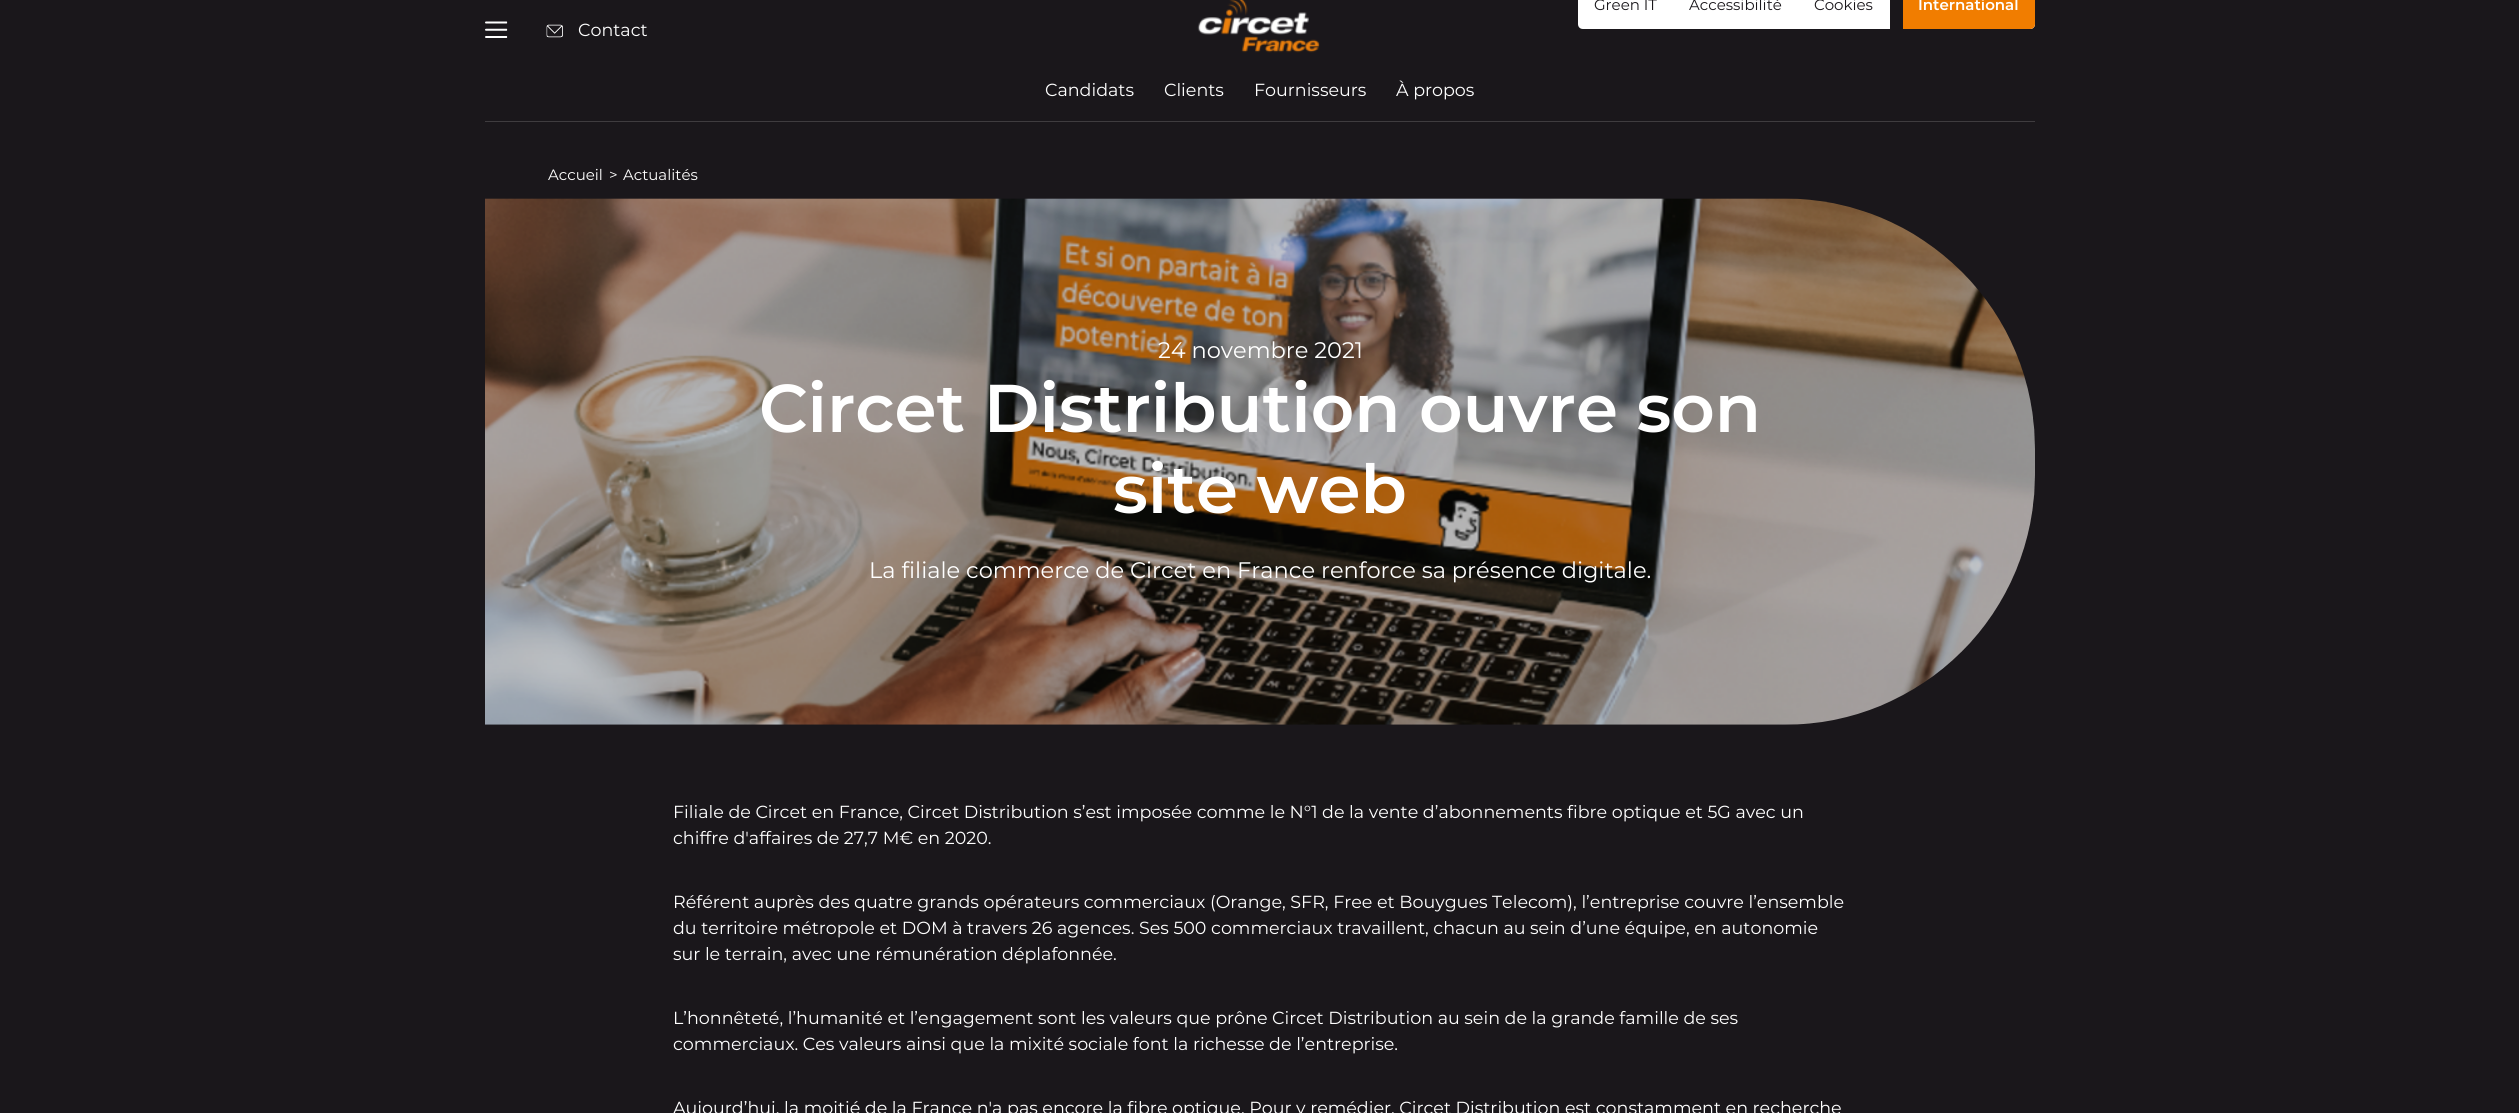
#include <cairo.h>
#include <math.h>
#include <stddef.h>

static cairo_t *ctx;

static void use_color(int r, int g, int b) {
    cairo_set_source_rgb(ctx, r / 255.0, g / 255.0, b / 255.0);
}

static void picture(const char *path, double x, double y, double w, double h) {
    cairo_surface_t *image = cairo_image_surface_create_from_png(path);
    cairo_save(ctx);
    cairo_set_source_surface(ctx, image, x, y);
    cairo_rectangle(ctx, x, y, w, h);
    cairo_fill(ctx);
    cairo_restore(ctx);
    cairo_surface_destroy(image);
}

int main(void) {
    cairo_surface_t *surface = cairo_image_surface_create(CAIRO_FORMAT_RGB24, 2519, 1113);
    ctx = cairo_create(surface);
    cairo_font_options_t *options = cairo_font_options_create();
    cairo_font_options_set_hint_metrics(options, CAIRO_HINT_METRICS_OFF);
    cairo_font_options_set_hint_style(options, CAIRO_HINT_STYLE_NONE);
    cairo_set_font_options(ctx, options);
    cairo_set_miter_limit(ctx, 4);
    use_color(26, 23, 27);
    cairo_paint(ctx);
    use_color(63, 60, 63);
    cairo_rectangle(ctx, 485, 121, 1550, 1);
    cairo_fill(ctx);
    use_color(255, 255, 255);
    cairo_new_path(ctx);
    cairo_move_to(ctx, 1578, -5);
    cairo_line_to(ctx, 2035, -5);
    cairo_line_to(ctx, 2035, 24);
    cairo_curve_to(ctx, 2035, 27, 2033, 29, 2030, 29);
    cairo_line_to(ctx, 1583, 29);
    cairo_curve_to(ctx, 1580, 29, 1578, 27, 1578, 24);
    cairo_close_path(ctx);
    cairo_fill(ctx);
    cairo_select_font_face(ctx, "Montserrat", CAIRO_FONT_SLANT_NORMAL, CAIRO_FONT_WEIGHT_NORMAL);
    cairo_set_font_size(ctx, 15);
    use_color(26, 23, 27);
    cairo_move_to(ctx, 1594, 10);
    cairo_show_text(ctx, "Green IT");
    cairo_move_to(ctx, 1689, 10);
    cairo_show_text(ctx, "Accessibilité");
    cairo_move_to(ctx, 1814, 10);
    cairo_show_text(ctx, "Cookies");
    use_color(241, 125, 0);
    cairo_new_path(ctx);
    cairo_move_to(ctx, 1890, -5);
    cairo_line_to(ctx, 2035, -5);
    cairo_line_to(ctx, 2035, 24);
    cairo_curve_to(ctx, 2035, 27, 2033, 29, 2030, 29);
    cairo_line_to(ctx, 1890, 29);
    cairo_close_path(ctx);
    cairo_fill(ctx);
    use_color(26, 23, 27);
    cairo_rectangle(ctx, 1890, 0, 13, 29);
    cairo_fill(ctx);
    cairo_select_font_face(ctx, "Montserrat SemiBold", CAIRO_FONT_SLANT_NORMAL, CAIRO_FONT_WEIGHT_NORMAL);
    use_color(255, 255, 255);
    cairo_move_to(ctx, 1918, 10);
    cairo_show_text(ctx, "International");
    picture("img1.png", 485, 21, 23, 17);
    picture("img2.png", 546, 24, 17, 14);
    cairo_select_font_face(ctx, "Montserrat", CAIRO_FONT_SLANT_NORMAL, CAIRO_FONT_WEIGHT_NORMAL);
    cairo_set_font_size(ctx, 17.5);
    cairo_move_to(ctx, 578, 36);
    cairo_show_text(ctx, "Contact");
    picture("img3.png", 1197, 0, 123, 53);
    cairo_move_to(ctx, 1045, 96);
    cairo_show_text(ctx, "Candidats");
    cairo_move_to(ctx, 1164, 96);
    cairo_show_text(ctx, "Clients");
    cairo_move_to(ctx, 1254, 96);
    cairo_show_text(ctx, "Fournisseurs");
    cairo_move_to(ctx, 1396, 96);
    cairo_show_text(ctx, "À propos");
    cairo_set_font_size(ctx, 15);
    cairo_move_to(ctx, 548, 180);
    cairo_show_text(ctx, "Accueil");
    cairo_move_to(ctx, 609, 180);
    cairo_show_text(ctx, ">");
    cairo_move_to(ctx, 623, 180);
    cairo_show_text(ctx, "Actualités");
    picture("img4.png", 485, 198, 1550, 527);
    cairo_set_font_size(ctx, 22.5);
    cairo_move_to(ctx, 1158, 358);
    cairo_show_text(ctx, "24 novembre 2021");
    cairo_select_font_face(ctx, "Montserrat SemiBold", CAIRO_FONT_SLANT_NORMAL, CAIRO_FONT_WEIGHT_NORMAL);
    cairo_set_font_size(ctx, 67.5);
    cairo_move_to(ctx, 759, 432);
    cairo_show_text(ctx, "Circet Distribution ouvre son");
    cairo_move_to(ctx, 1113, 513);
    cairo_show_text(ctx, "site web");
    cairo_select_font_face(ctx, "Montserrat", CAIRO_FONT_SLANT_NORMAL, CAIRO_FONT_WEIGHT_NORMAL);
    cairo_set_font_size(ctx, 22.5);
    cairo_move_to(ctx, 869, 578);
    cairo_show_text(ctx, "La filiale commerce de Circet en France renforce sa présence digitale.");
    cairo_set_font_size(ctx, 17.5);
    cairo_move_to(ctx, 673, 818);
    cairo_show_text(ctx, "Filiale de Circet en France, Circet Distribution s’est imposée comme le N°1 de la vente d’abonnements fibre optique et 5G avec un");
    cairo_move_to(ctx, 673, 844);
    cairo_show_text(ctx, "chiffre d'affaires de 27,7 M€ en 2020.");
    cairo_move_to(ctx, 673, 908);
    cairo_show_text(ctx, "Référent auprès des quatre grands opérateurs commerciaux (Orange, SFR, Free et Bouygues Telecom), l’entreprise couvre l’ensemble");
    cairo_move_to(ctx, 673, 934);
    cairo_show_text(ctx, "du territoire métropole et DOM à travers 26 agences. Ses 500 commerciaux travaillent, chacun au sein d’une équipe, en autonomie");
    cairo_move_to(ctx, 673, 960);
    cairo_show_text(ctx, "sur le terrain, avec une rémunération déplafonnée.");
    cairo_move_to(ctx, 673, 1024);
    cairo_show_text(ctx, "L’honnêteté, l’humanité et l’engagement sont les valeurs que prône Circet Distribution au sein de la grande famille de ses");
    cairo_move_to(ctx, 673, 1050);
    cairo_show_text(ctx, "commerciaux. Ces valeurs ainsi que la mixité sociale font la richesse de l’entreprise.");
    cairo_move_to(ctx, 673, 1114);
    cairo_show_text(ctx, "Aujourd’hui, la moitié de la France n'a pas encore la fibre optique. Pour y remédier, Circet Distribution est constamment en recherche");
    cairo_surface_write_to_png(surface, "result.png");
    cairo_font_options_destroy(options);
    cairo_destroy(ctx);
    cairo_surface_destroy(surface);
    return 0;
}
